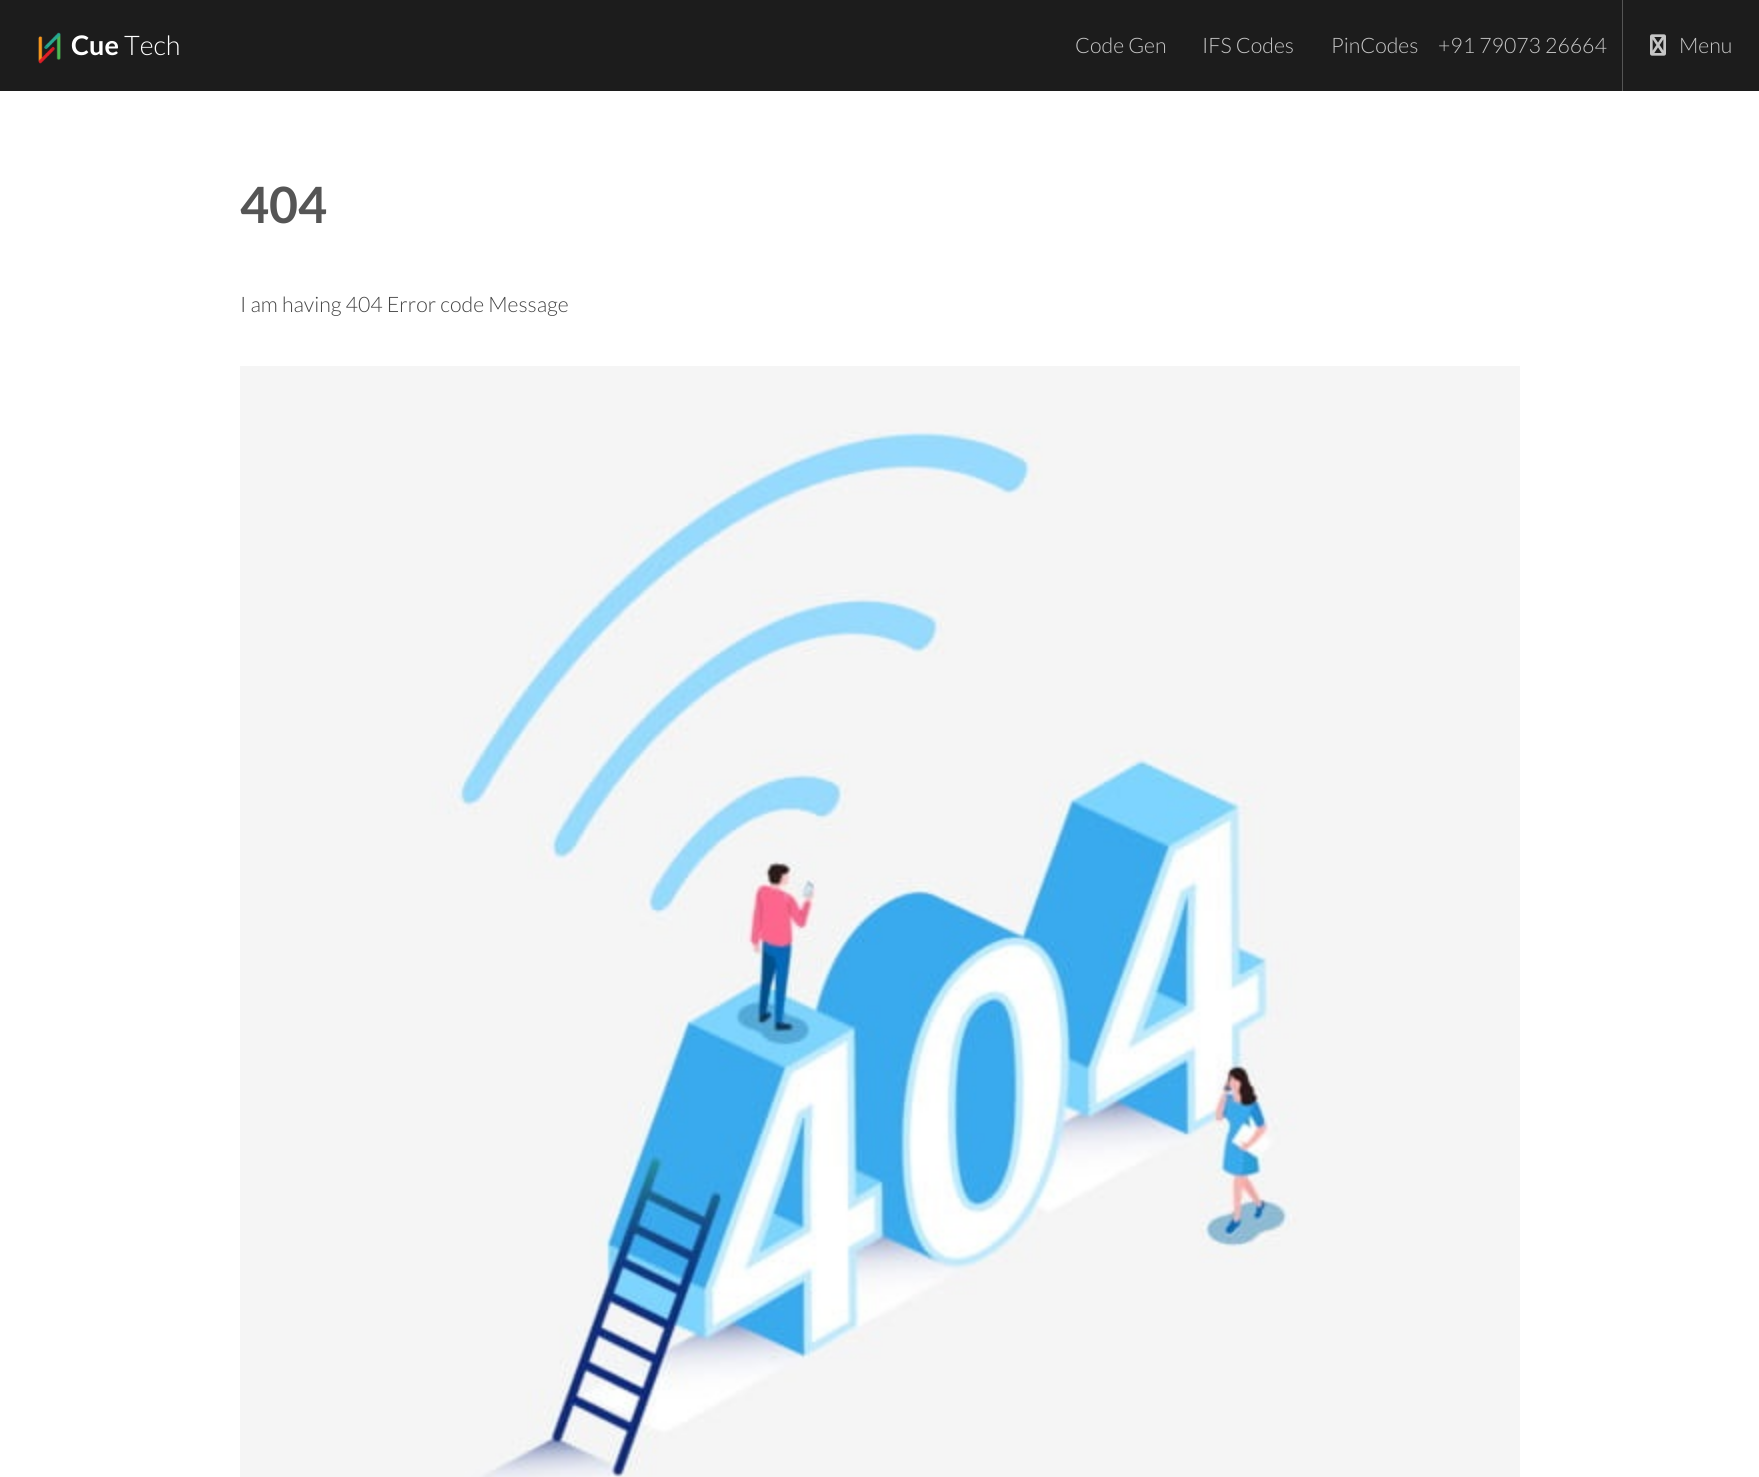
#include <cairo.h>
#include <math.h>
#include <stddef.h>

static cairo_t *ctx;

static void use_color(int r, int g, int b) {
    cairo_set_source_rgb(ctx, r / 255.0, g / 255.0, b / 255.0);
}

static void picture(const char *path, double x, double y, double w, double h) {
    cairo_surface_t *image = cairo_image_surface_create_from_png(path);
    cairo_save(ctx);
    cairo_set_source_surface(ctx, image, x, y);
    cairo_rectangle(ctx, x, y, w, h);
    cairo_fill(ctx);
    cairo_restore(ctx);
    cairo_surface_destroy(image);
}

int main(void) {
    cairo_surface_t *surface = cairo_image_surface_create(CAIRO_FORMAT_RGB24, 1759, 1477);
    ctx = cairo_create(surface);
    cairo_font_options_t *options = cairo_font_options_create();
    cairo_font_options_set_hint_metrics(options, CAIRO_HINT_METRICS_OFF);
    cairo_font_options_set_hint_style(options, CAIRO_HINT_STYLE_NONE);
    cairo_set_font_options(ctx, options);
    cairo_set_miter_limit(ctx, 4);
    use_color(255, 255, 255);
    cairo_paint(ctx);
    use_color(28, 28, 28);
    cairo_rectangle(ctx, 0, 0, 1759, 91);
    cairo_fill(ctx);
    picture("img1.png", 38, 32, 23, 32);
    cairo_select_font_face(ctx, "Lato", CAIRO_FONT_SLANT_NORMAL, CAIRO_FONT_WEIGHT_BOLD);
    cairo_set_font_size(ctx, 27);
    use_color(255, 255, 255);
    cairo_move_to(ctx, 71, 55);
    cairo_show_text(ctx, "Cue");
    cairo_select_font_face(ctx, "Lato Light", CAIRO_FONT_SLANT_NORMAL, CAIRO_FONT_WEIGHT_NORMAL);
    cairo_move_to(ctx, 124, 55);
    cairo_show_text(ctx, "Tech");
    cairo_set_font_size(ctx, 21.3);
    use_color(198, 198, 198);
    cairo_move_to(ctx, 1075, 53);
    cairo_show_text(ctx, "Code Gen");
    cairo_move_to(ctx, 1202, 53);
    cairo_show_text(ctx, "IFS Codes");
    cairo_move_to(ctx, 1331, 53);
    cairo_show_text(ctx, "PinCodes");
    cairo_move_to(ctx, 1438, 53);
    cairo_show_text(ctx, "+91 79073 26664");
    use_color(85, 85, 85);
    cairo_rectangle(ctx, 1622, 0, 1, 91);
    cairo_fill(ctx);
    picture("img2.png", 1650, 34, 16, 22);
    use_color(198, 198, 198);
    cairo_move_to(ctx, 1679, 53);
    cairo_show_text(ctx, "Menu");
    cairo_select_font_face(ctx, "Lato", CAIRO_FONT_SLANT_NORMAL, CAIRO_FONT_WEIGHT_BOLD);
    cairo_set_font_size(ctx, 50);
    use_color(85, 85, 85);
    cairo_move_to(ctx, 240, 223);
    cairo_show_text(ctx, "404");
    cairo_select_font_face(ctx, "Lato Light", CAIRO_FONT_SLANT_NORMAL, CAIRO_FONT_WEIGHT_NORMAL);
    cairo_set_font_size(ctx, 21.3);
    use_color(68, 68, 68);
    cairo_move_to(ctx, 240, 312);
    cairo_show_text(ctx, "I am having 404 Error code Message");
    picture("img3.png", 240, 366, 1280, 1111);
    cairo_surface_write_to_png(surface, "result.png");
    cairo_font_options_destroy(options);
    cairo_destroy(ctx);
    cairo_surface_destroy(surface);
    return 0;
}
